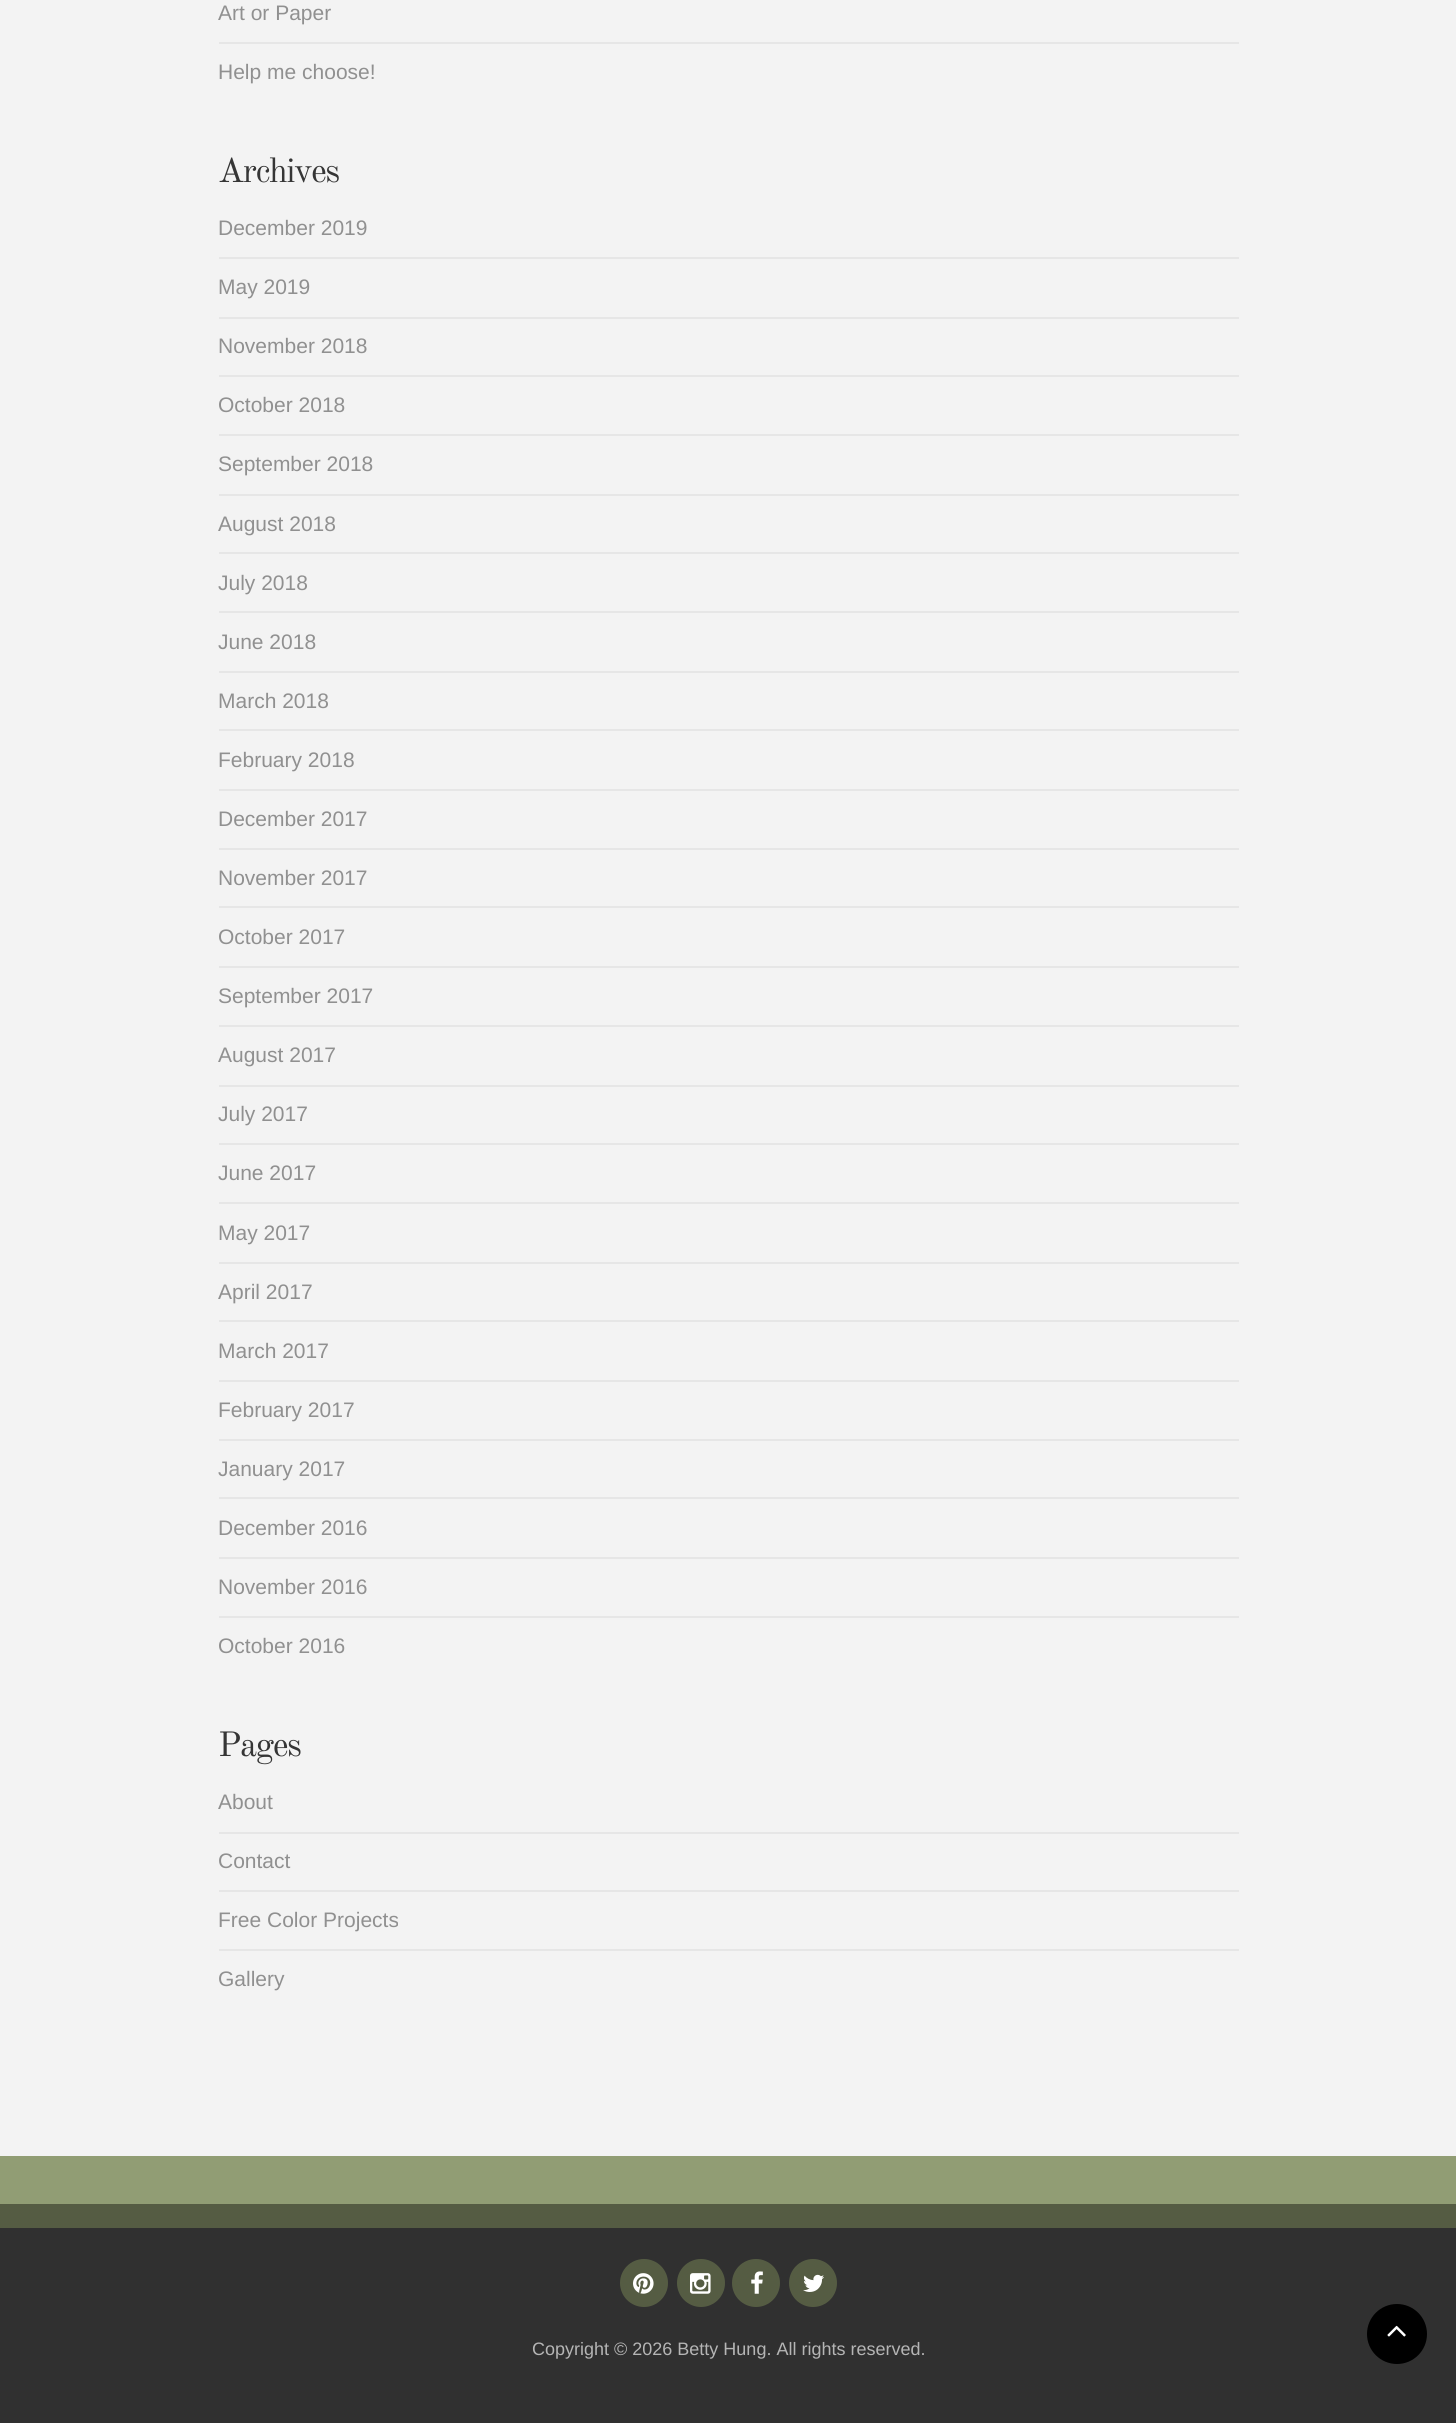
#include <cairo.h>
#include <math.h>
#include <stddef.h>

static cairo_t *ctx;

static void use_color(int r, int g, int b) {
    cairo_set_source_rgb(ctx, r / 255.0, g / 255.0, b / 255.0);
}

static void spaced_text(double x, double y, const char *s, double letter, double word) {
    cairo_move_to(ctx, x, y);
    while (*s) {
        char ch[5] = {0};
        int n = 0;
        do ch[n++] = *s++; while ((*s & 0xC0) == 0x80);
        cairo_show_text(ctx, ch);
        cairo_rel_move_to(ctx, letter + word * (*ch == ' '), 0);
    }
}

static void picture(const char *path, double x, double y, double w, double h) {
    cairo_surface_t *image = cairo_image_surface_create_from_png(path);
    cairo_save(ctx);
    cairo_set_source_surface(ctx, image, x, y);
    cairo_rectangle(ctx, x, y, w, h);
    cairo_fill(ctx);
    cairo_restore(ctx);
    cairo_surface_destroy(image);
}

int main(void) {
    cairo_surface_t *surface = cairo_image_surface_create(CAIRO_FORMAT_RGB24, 1456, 2423);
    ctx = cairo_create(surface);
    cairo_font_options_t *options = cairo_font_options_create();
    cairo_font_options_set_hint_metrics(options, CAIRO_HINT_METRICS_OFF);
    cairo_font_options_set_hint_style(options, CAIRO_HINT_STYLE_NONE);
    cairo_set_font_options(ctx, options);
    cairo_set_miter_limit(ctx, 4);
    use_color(48, 48, 48);
    cairo_paint(ctx);
    use_color(243, 243, 243);
    cairo_rectangle(ctx, 0, 0, 1456, 2156);
    cairo_fill(ctx);
    cairo_select_font_face(ctx, "Liberation Sans", CAIRO_FONT_SLANT_NORMAL, CAIRO_FONT_WEIGHT_NORMAL);
    cairo_set_font_size(ctx, 21);
    use_color(144, 144, 144);
    cairo_move_to(ctx, 218, 20);
    cairo_show_text(ctx, "Art or Paper");
    use_color(230, 230, 230);
    cairo_rectangle(ctx, 219, 42, 1020, 2);
    cairo_fill(ctx);
    use_color(144, 144, 144);
    cairo_move_to(ctx, 218, 79);
    cairo_show_text(ctx, "Help me choose!");
    cairo_select_font_face(ctx, "Old Standard TT", CAIRO_FONT_SLANT_NORMAL, CAIRO_FONT_WEIGHT_NORMAL);
    cairo_set_font_size(ctx, 34.5);
    use_color(53, 53, 53);
    spaced_text(218, 182, "Archives", -1.5, 0);
    cairo_select_font_face(ctx, "Liberation Sans", CAIRO_FONT_SLANT_NORMAL, CAIRO_FONT_WEIGHT_NORMAL);
    cairo_set_font_size(ctx, 21);
    use_color(144, 144, 144);
    cairo_move_to(ctx, 218, 235);
    cairo_show_text(ctx, "December 2019");
    use_color(230, 230, 230);
    cairo_rectangle(ctx, 219, 257, 1020, 2);
    cairo_fill(ctx);
    use_color(144, 144, 144);
    cairo_move_to(ctx, 218, 294);
    cairo_show_text(ctx, "May 2019");
    use_color(230, 230, 230);
    cairo_rectangle(ctx, 219, 317, 1020, 2);
    cairo_fill(ctx);
    use_color(144, 144, 144);
    cairo_move_to(ctx, 218, 353);
    cairo_show_text(ctx, "November 2018");
    use_color(230, 230, 230);
    cairo_rectangle(ctx, 219, 375, 1020, 2);
    cairo_fill(ctx);
    use_color(144, 144, 144);
    cairo_move_to(ctx, 218, 412);
    cairo_show_text(ctx, "October 2018");
    use_color(230, 230, 230);
    cairo_rectangle(ctx, 219, 434, 1020, 2);
    cairo_fill(ctx);
    use_color(144, 144, 144);
    cairo_move_to(ctx, 218, 471);
    cairo_show_text(ctx, "September 2018");
    use_color(230, 230, 230);
    cairo_rectangle(ctx, 219, 494, 1020, 2);
    cairo_fill(ctx);
    use_color(144, 144, 144);
    cairo_move_to(ctx, 218, 531);
    cairo_show_text(ctx, "August 2018");
    use_color(230, 230, 230);
    cairo_rectangle(ctx, 219, 552, 1020, 2);
    cairo_fill(ctx);
    use_color(144, 144, 144);
    cairo_move_to(ctx, 218, 590);
    cairo_show_text(ctx, "July 2018");
    use_color(230, 230, 230);
    cairo_rectangle(ctx, 219, 611, 1020, 2);
    cairo_fill(ctx);
    use_color(144, 144, 144);
    cairo_move_to(ctx, 218, 649);
    cairo_show_text(ctx, "June 2018");
    use_color(230, 230, 230);
    cairo_rectangle(ctx, 219, 671, 1020, 2);
    cairo_fill(ctx);
    use_color(144, 144, 144);
    cairo_move_to(ctx, 218, 708);
    cairo_show_text(ctx, "March 2018");
    use_color(230, 230, 230);
    cairo_rectangle(ctx, 219, 729, 1020, 2);
    cairo_fill(ctx);
    use_color(144, 144, 144);
    cairo_move_to(ctx, 218, 767);
    cairo_show_text(ctx, "February 2018");
    use_color(230, 230, 230);
    cairo_rectangle(ctx, 219, 789, 1020, 2);
    cairo_fill(ctx);
    use_color(144, 144, 144);
    cairo_move_to(ctx, 218, 826);
    cairo_show_text(ctx, "December 2017");
    use_color(230, 230, 230);
    cairo_rectangle(ctx, 219, 848, 1020, 2);
    cairo_fill(ctx);
    use_color(144, 144, 144);
    cairo_move_to(ctx, 218, 885);
    cairo_show_text(ctx, "November 2017");
    use_color(230, 230, 230);
    cairo_rectangle(ctx, 219, 906, 1020, 2);
    cairo_fill(ctx);
    use_color(144, 144, 144);
    cairo_move_to(ctx, 218, 944);
    cairo_show_text(ctx, "October 2017");
    use_color(230, 230, 230);
    cairo_rectangle(ctx, 219, 966, 1020, 2);
    cairo_fill(ctx);
    use_color(144, 144, 144);
    cairo_move_to(ctx, 218, 1003);
    cairo_show_text(ctx, "September 2017");
    use_color(230, 230, 230);
    cairo_rectangle(ctx, 219, 1025, 1020, 2);
    cairo_fill(ctx);
    use_color(144, 144, 144);
    cairo_move_to(ctx, 218, 1062);
    cairo_show_text(ctx, "August 2017");
    use_color(230, 230, 230);
    cairo_rectangle(ctx, 219, 1085, 1020, 2);
    cairo_fill(ctx);
    use_color(144, 144, 144);
    cairo_move_to(ctx, 218, 1121);
    cairo_show_text(ctx, "July 2017");
    use_color(230, 230, 230);
    cairo_rectangle(ctx, 219, 1143, 1020, 2);
    cairo_fill(ctx);
    use_color(144, 144, 144);
    cairo_move_to(ctx, 218, 1180);
    cairo_show_text(ctx, "June 2017");
    use_color(230, 230, 230);
    cairo_rectangle(ctx, 219, 1202, 1020, 2);
    cairo_fill(ctx);
    use_color(144, 144, 144);
    cairo_move_to(ctx, 218, 1240);
    cairo_show_text(ctx, "May 2017");
    use_color(230, 230, 230);
    cairo_rectangle(ctx, 219, 1262, 1020, 2);
    cairo_fill(ctx);
    use_color(144, 144, 144);
    cairo_move_to(ctx, 218, 1299);
    cairo_show_text(ctx, "April 2017");
    use_color(230, 230, 230);
    cairo_rectangle(ctx, 219, 1320, 1020, 2);
    cairo_fill(ctx);
    use_color(144, 144, 144);
    cairo_move_to(ctx, 218, 1358);
    cairo_show_text(ctx, "March 2017");
    use_color(230, 230, 230);
    cairo_rectangle(ctx, 219, 1380, 1020, 2);
    cairo_fill(ctx);
    use_color(144, 144, 144);
    cairo_move_to(ctx, 218, 1417);
    cairo_show_text(ctx, "February 2017");
    use_color(230, 230, 230);
    cairo_rectangle(ctx, 219, 1439, 1020, 2);
    cairo_fill(ctx);
    use_color(144, 144, 144);
    cairo_move_to(ctx, 218, 1476);
    cairo_show_text(ctx, "January 2017");
    use_color(230, 230, 230);
    cairo_rectangle(ctx, 219, 1497, 1020, 2);
    cairo_fill(ctx);
    use_color(144, 144, 144);
    cairo_move_to(ctx, 218, 1535);
    cairo_show_text(ctx, "December 2016");
    use_color(230, 230, 230);
    cairo_rectangle(ctx, 219, 1557, 1020, 2);
    cairo_fill(ctx);
    use_color(144, 144, 144);
    cairo_move_to(ctx, 218, 1594);
    cairo_show_text(ctx, "November 2016");
    use_color(230, 230, 230);
    cairo_rectangle(ctx, 219, 1616, 1020, 2);
    cairo_fill(ctx);
    use_color(144, 144, 144);
    cairo_move_to(ctx, 218, 1653);
    cairo_show_text(ctx, "October 2016");
    cairo_select_font_face(ctx, "Old Standard TT", CAIRO_FONT_SLANT_NORMAL, CAIRO_FONT_WEIGHT_NORMAL);
    cairo_set_font_size(ctx, 34.5);
    use_color(53, 53, 53);
    spaced_text(218, 1756, "Pages", -1.5, 0);
    cairo_select_font_face(ctx, "Liberation Sans", CAIRO_FONT_SLANT_NORMAL, CAIRO_FONT_WEIGHT_NORMAL);
    cairo_set_font_size(ctx, 21);
    use_color(144, 144, 144);
    cairo_move_to(ctx, 218, 1809);
    cairo_show_text(ctx, "About");
    use_color(230, 230, 230);
    cairo_rectangle(ctx, 219, 1832, 1020, 2);
    cairo_fill(ctx);
    use_color(144, 144, 144);
    cairo_move_to(ctx, 218, 1868);
    cairo_show_text(ctx, "Contact");
    use_color(230, 230, 230);
    cairo_rectangle(ctx, 219, 1890, 1020, 2);
    cairo_fill(ctx);
    use_color(144, 144, 144);
    cairo_move_to(ctx, 218, 1927);
    cairo_show_text(ctx, "Free Color Projects");
    use_color(230, 230, 230);
    cairo_rectangle(ctx, 219, 1949, 1020, 2);
    cairo_fill(ctx);
    use_color(144, 144, 144);
    cairo_move_to(ctx, 218, 1986);
    cairo_show_text(ctx, "Gallery");
    use_color(145, 157, 116);
    cairo_rectangle(ctx, 0, 2156, 1456, 48);
    cairo_fill(ctx);
    use_color(85, 92, 67);
    cairo_rectangle(ctx, 0, 2204, 1456, 24);
    cairo_fill(ctx);
    cairo_arc(ctx, 644, 2283, 24, 0, 2 * M_PI);
    cairo_fill(ctx);
    picture("img1.png", 633, 2273, 21, 21);
    cairo_arc(ctx, 701, 2283, 24, 0, 2 * M_PI);
    cairo_fill(ctx);
    picture("img2.png", 690, 2273, 21, 21);
    cairo_arc(ctx, 756, 2283, 24, 0, 2 * M_PI);
    cairo_fill(ctx);
    picture("img3.png", 751, 2271, 12, 23);
    cairo_arc(ctx, 813, 2283, 24, 0, 2 * M_PI);
    cairo_fill(ctx);
    picture("img4.png", 803, 2274, 21, 18);
    cairo_set_font_size(ctx, 18);
    use_color(181, 181, 181);
    cairo_move_to(ctx, 532, 2355);
    cairo_show_text(ctx, "Copyright © 2026 Betty Hung. All rights reserved.");
    use_color(0, 0, 0);
    cairo_new_path(ctx);
    cairo_arc(ctx, 1397, 2334, 30, 0, 2 * M_PI);
    cairo_fill(ctx);
    picture("img5.png", 1387, 2325, 19, 12);
    cairo_surface_write_to_png(surface, "result.png");
    cairo_font_options_destroy(options);
    cairo_destroy(ctx);
    cairo_surface_destroy(surface);
    return 0;
}
